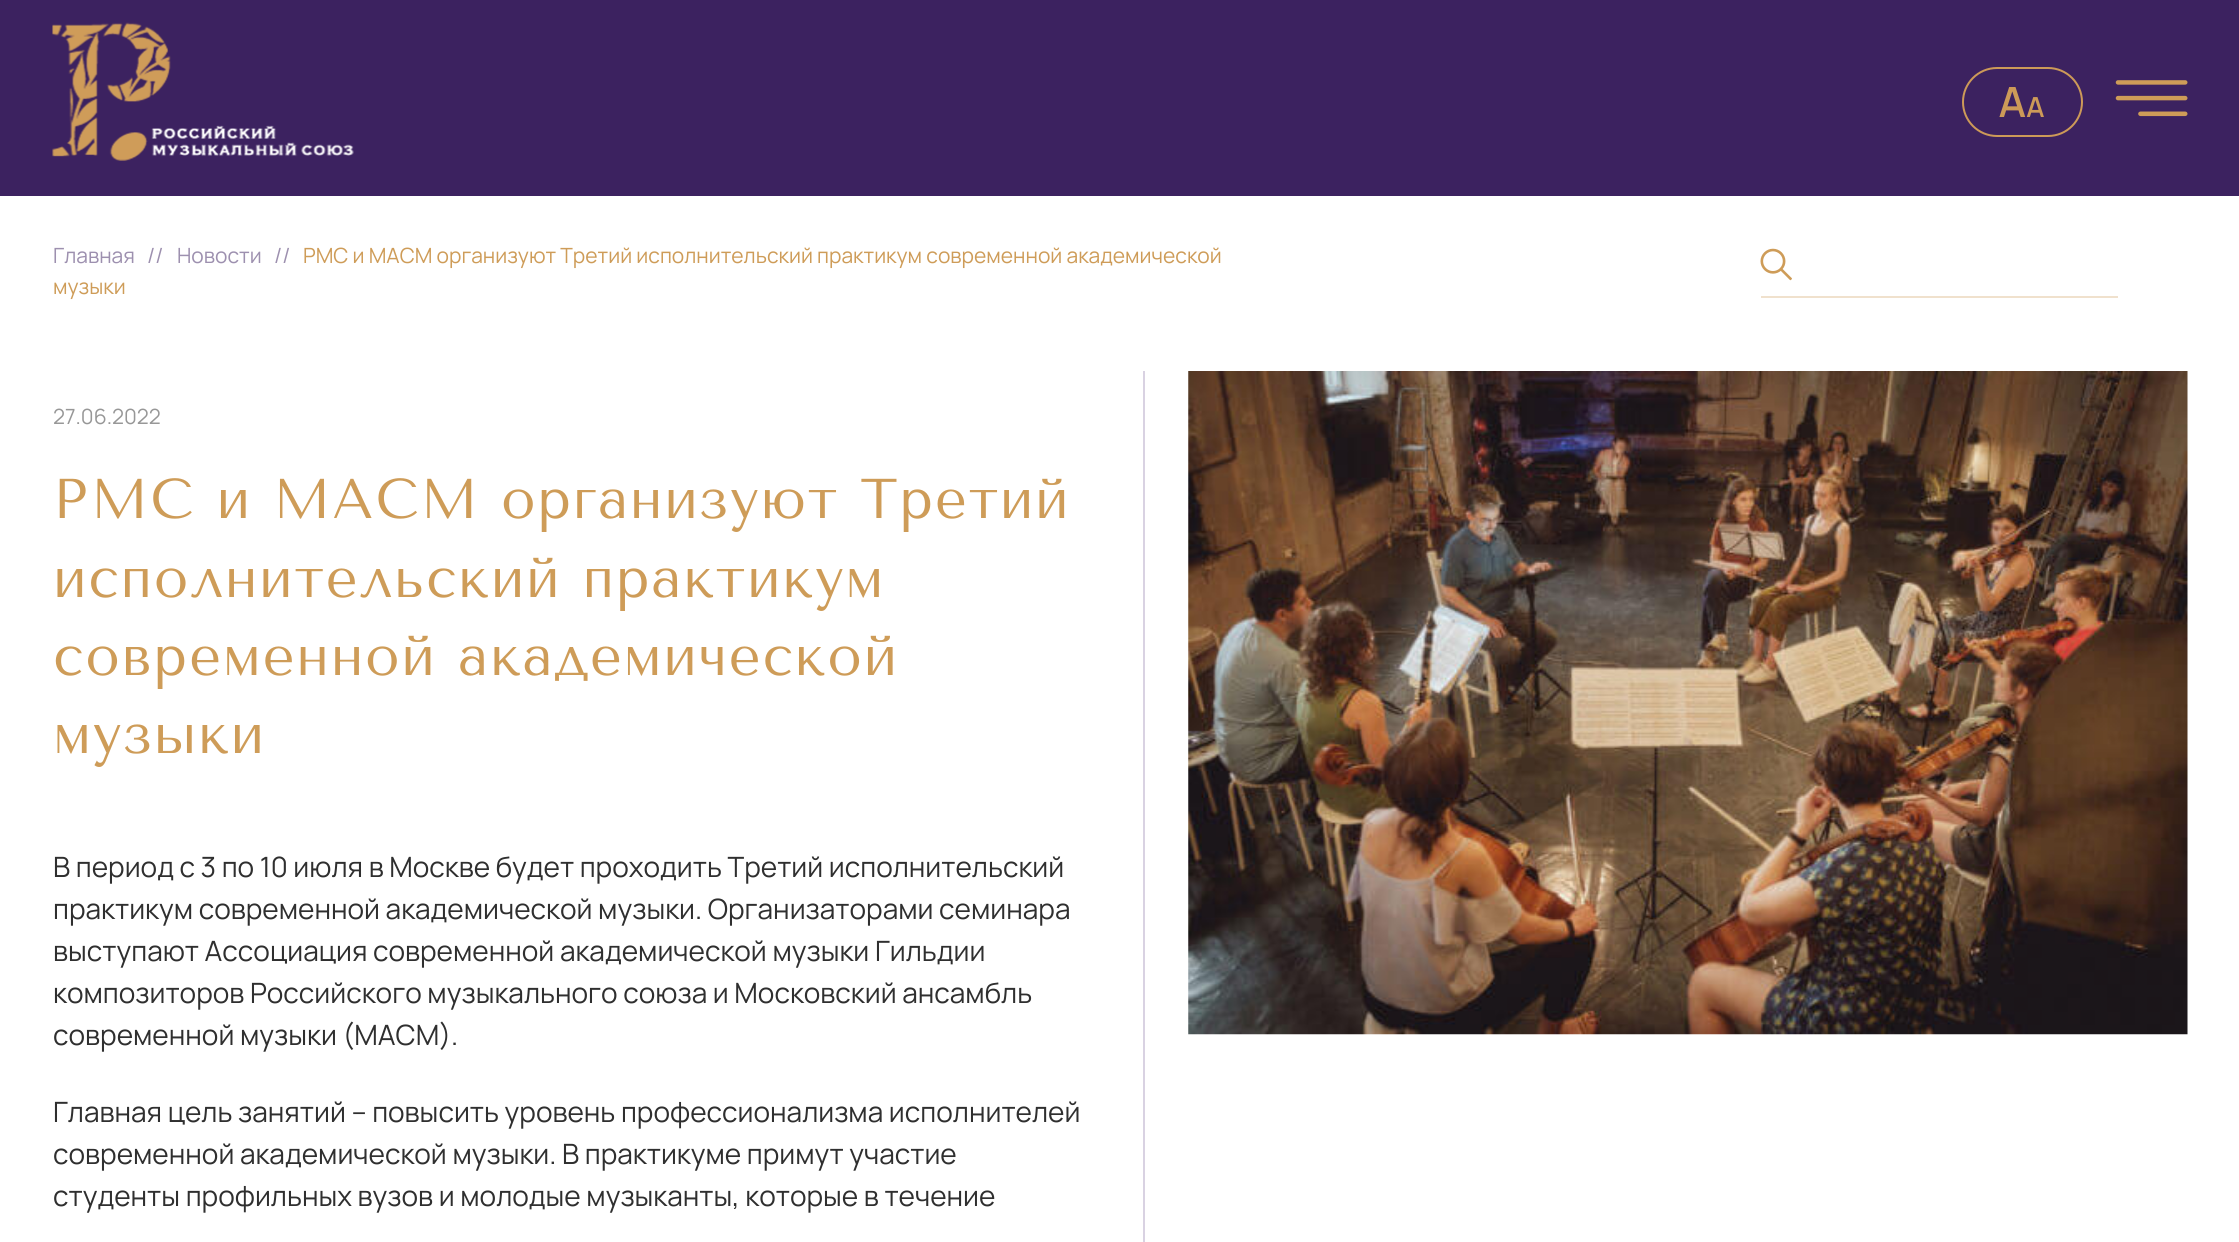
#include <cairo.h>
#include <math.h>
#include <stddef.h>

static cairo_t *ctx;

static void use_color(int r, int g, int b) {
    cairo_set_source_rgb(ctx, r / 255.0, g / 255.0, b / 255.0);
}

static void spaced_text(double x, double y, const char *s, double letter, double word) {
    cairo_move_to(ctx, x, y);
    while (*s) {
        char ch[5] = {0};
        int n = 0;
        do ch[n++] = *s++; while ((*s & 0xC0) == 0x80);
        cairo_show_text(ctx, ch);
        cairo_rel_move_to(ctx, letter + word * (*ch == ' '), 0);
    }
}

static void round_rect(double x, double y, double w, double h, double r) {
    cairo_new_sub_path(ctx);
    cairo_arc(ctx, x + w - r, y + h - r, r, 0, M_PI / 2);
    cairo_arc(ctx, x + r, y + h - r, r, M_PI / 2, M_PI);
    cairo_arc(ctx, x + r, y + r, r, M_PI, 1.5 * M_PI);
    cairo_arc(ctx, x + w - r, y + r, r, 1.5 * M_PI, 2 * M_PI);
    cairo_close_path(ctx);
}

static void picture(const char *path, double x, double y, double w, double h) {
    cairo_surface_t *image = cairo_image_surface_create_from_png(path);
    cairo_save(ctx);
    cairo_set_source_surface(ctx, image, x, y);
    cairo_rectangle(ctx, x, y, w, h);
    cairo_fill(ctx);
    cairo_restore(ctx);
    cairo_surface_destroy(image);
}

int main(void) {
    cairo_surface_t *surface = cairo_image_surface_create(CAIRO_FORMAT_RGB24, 2239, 1242);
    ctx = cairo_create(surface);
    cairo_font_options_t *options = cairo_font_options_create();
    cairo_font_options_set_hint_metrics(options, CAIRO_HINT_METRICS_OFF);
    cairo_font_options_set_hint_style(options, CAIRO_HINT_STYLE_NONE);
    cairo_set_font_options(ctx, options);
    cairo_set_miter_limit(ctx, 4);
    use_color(255, 255, 255);
    cairo_paint(ctx);
    use_color(60, 34, 96);
    cairo_rectangle(ctx, 0, 0, 2239, 196);
    cairo_fill(ctx);
    picture("img1.png", 52, 22, 302, 139);
    round_rect(1963, 68, 119, 68, 34);
    use_color(205, 154, 88);
    cairo_stroke(ctx);
    picture("img2.png", 1999, 87, 45, 30);
    picture("img3.png", 2115, 80, 73, 37);
    cairo_select_font_face(ctx, "Manrope", CAIRO_FONT_SLANT_NORMAL, CAIRO_FONT_WEIGHT_NORMAL);
    cairo_set_font_size(ctx, 21);
    use_color(157, 144, 175);
    cairo_move_to(ctx, 53, 263);
    cairo_show_text(ctx, "Главная");
    cairo_move_to(ctx, 147, 263);
    cairo_show_text(ctx, "//");
    cairo_move_to(ctx, 177, 263);
    cairo_show_text(ctx, "Новости");
    cairo_move_to(ctx, 274, 263);
    cairo_show_text(ctx, "//");
    use_color(206, 156, 88);
    cairo_move_to(ctx, 303, 263);
    cairo_show_text(ctx, "РМС и МАСМ организуют Третий исполнительский практикум современной академической");
    cairo_move_to(ctx, 53, 294);
    cairo_show_text(ctx, "музыки");
    use_color(240, 225, 205);
    cairo_rectangle(ctx, 1761, 296, 357, 2);
    cairo_fill(ctx);
    picture("img4.png", 1760, 248, 32, 33);
    use_color(151, 151, 151);
    cairo_move_to(ctx, 53, 424);
    cairo_show_text(ctx, "27.06.2022");
    cairo_select_font_face(ctx, "Tenor Sans", CAIRO_FONT_SLANT_NORMAL, CAIRO_FONT_WEIGHT_NORMAL);
    cairo_set_font_size(ctx, 56);
    use_color(206, 156, 88);
    spaced_text(53, 518, "РМС и МАСМ организуют Третий", 1.7, 0);
    spaced_text(53, 597, "исполнительский практикум", 1.7, 0);
    spaced_text(53, 675, "современной академической", 1.7, 0);
    spaced_text(53, 753, "музыки", 1.7, 0);
    cairo_select_font_face(ctx, "Manrope", CAIRO_FONT_SLANT_NORMAL, CAIRO_FONT_WEIGHT_NORMAL);
    cairo_set_font_size(ctx, 28);
    use_color(47, 47, 47);
    cairo_move_to(ctx, 53, 877);
    cairo_show_text(ctx, "В период с 3 по 10 июля в Москве будет проходить Третий исполнительский");
    cairo_move_to(ctx, 53, 919);
    cairo_show_text(ctx, "практикум современной академической музыки. Организаторами семинара");
    cairo_move_to(ctx, 53, 961);
    cairo_show_text(ctx, "выступают Ассоциация современной академической музыки Гильдии");
    cairo_move_to(ctx, 53, 1003);
    cairo_show_text(ctx, "композиторов Российского музыкального союза и Московский ансамбль");
    cairo_move_to(ctx, 53, 1045);
    cairo_show_text(ctx, "современной музыки (МАСМ).");
    cairo_move_to(ctx, 53, 1122);
    cairo_show_text(ctx, "Главная цель занятий – повысить уровень профессионализма исполнителей");
    cairo_move_to(ctx, 53, 1164);
    cairo_show_text(ctx, "современной академической музыки. В практикуме примут участие");
    cairo_move_to(ctx, 53, 1206);
    cairo_show_text(ctx, "студенты профильных вузов и молодые музыканты, которые в течение");
    use_color(217, 210, 226);
    cairo_rectangle(ctx, 1143, 371, 2, 871);
    cairo_fill(ctx);
    picture("img5.png", 1188, 371, 1000, 664);
    cairo_surface_write_to_png(surface, "result.png");
    cairo_font_options_destroy(options);
    cairo_destroy(ctx);
    cairo_surface_destroy(surface);
    return 0;
}
